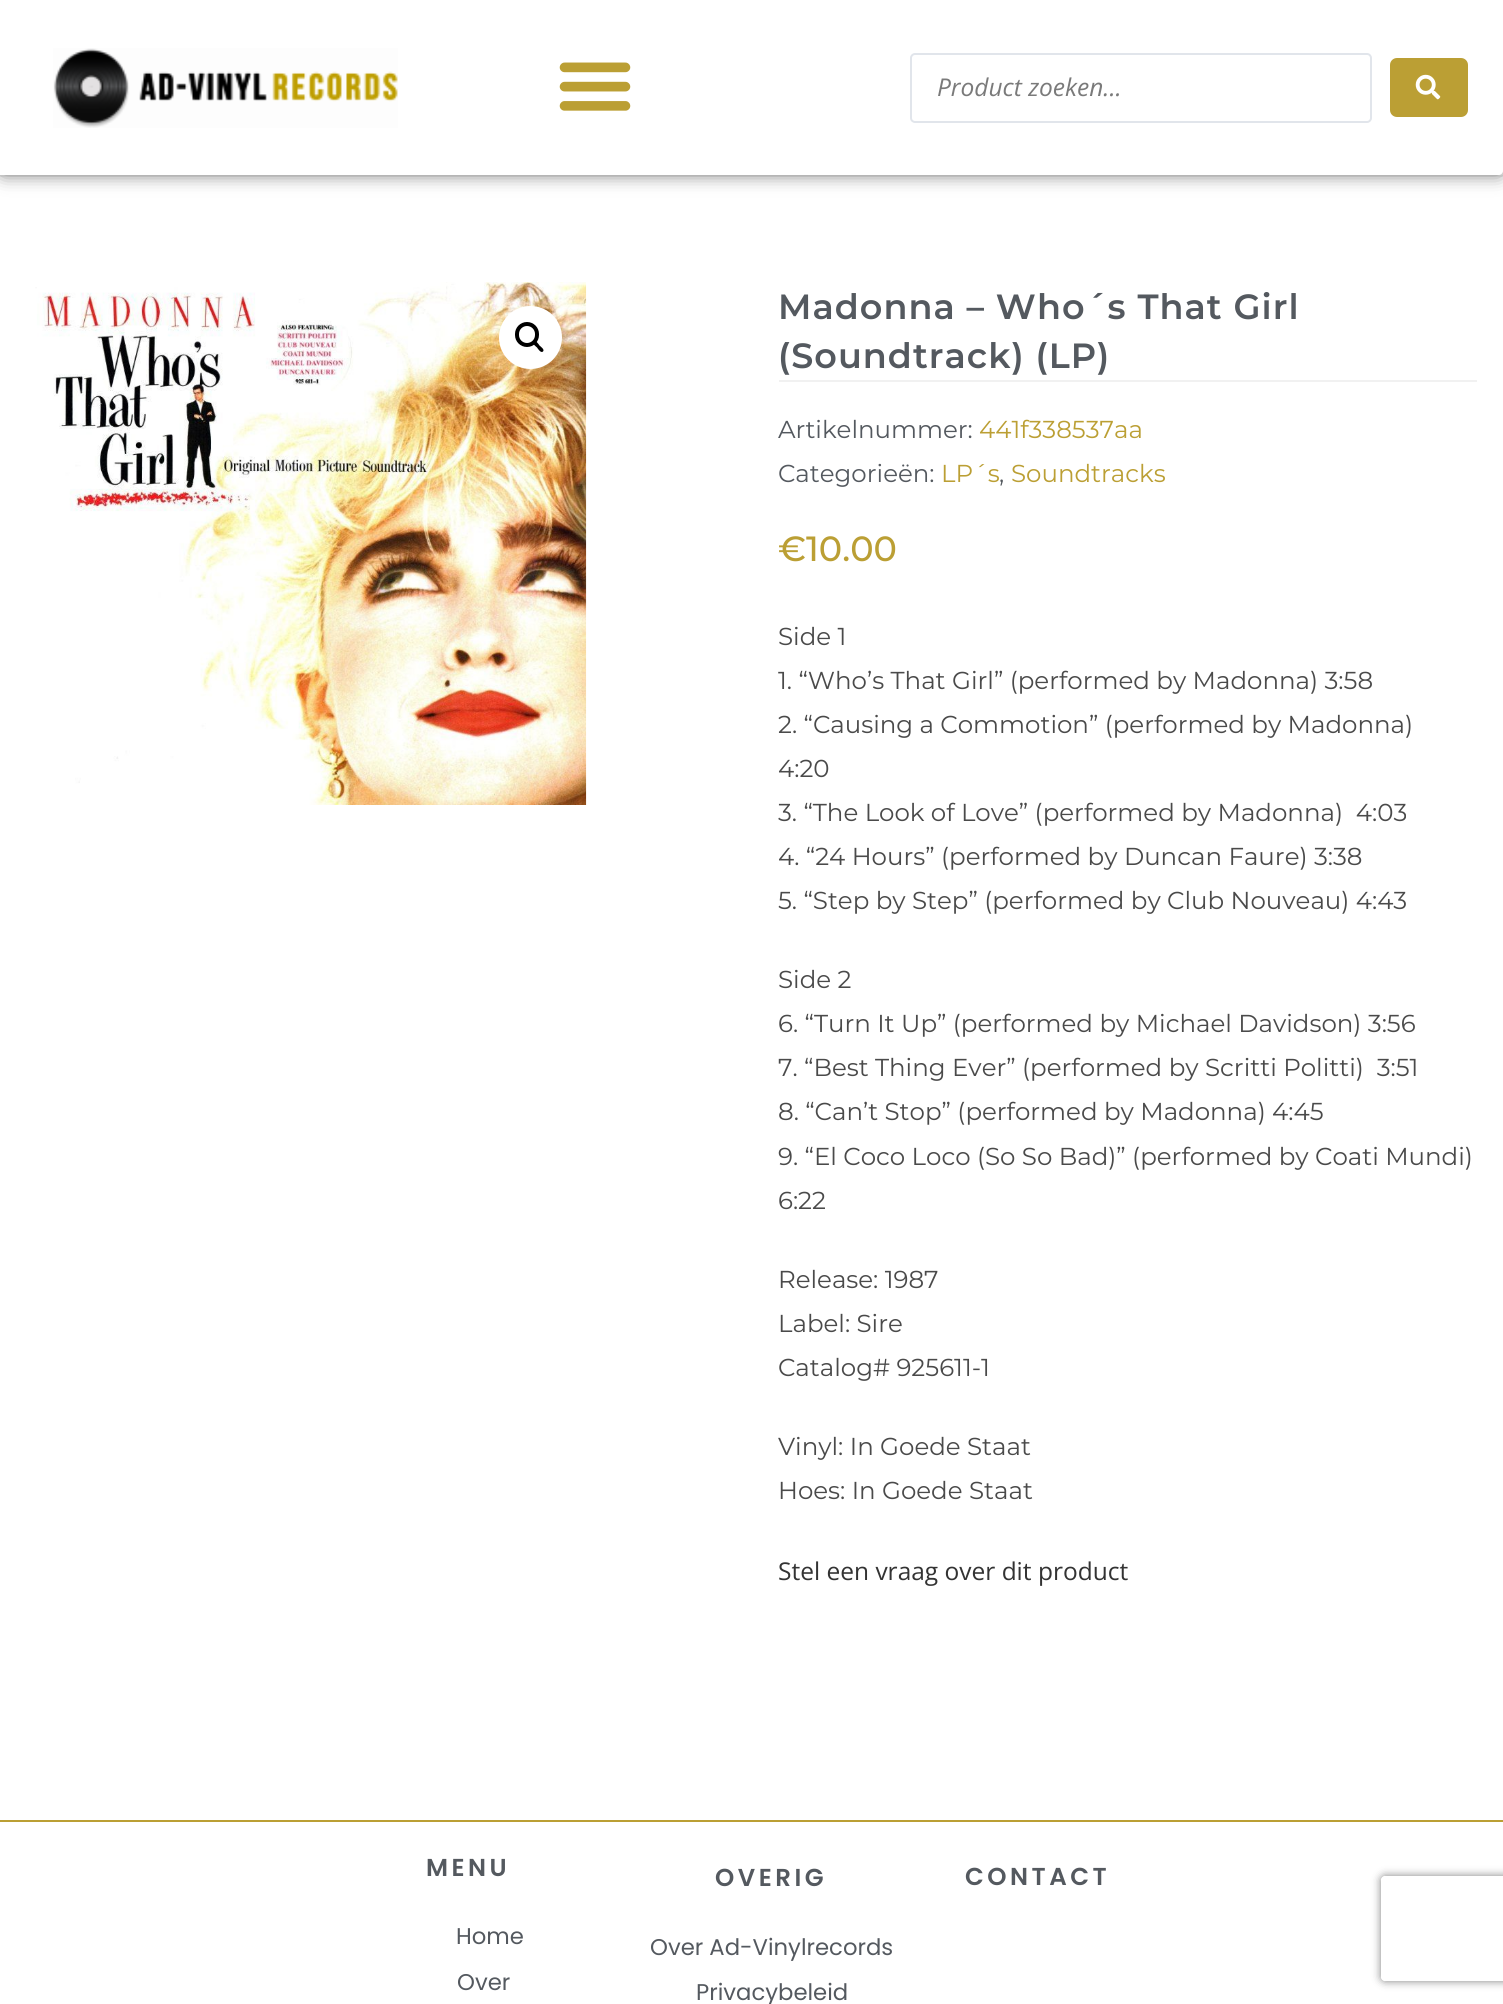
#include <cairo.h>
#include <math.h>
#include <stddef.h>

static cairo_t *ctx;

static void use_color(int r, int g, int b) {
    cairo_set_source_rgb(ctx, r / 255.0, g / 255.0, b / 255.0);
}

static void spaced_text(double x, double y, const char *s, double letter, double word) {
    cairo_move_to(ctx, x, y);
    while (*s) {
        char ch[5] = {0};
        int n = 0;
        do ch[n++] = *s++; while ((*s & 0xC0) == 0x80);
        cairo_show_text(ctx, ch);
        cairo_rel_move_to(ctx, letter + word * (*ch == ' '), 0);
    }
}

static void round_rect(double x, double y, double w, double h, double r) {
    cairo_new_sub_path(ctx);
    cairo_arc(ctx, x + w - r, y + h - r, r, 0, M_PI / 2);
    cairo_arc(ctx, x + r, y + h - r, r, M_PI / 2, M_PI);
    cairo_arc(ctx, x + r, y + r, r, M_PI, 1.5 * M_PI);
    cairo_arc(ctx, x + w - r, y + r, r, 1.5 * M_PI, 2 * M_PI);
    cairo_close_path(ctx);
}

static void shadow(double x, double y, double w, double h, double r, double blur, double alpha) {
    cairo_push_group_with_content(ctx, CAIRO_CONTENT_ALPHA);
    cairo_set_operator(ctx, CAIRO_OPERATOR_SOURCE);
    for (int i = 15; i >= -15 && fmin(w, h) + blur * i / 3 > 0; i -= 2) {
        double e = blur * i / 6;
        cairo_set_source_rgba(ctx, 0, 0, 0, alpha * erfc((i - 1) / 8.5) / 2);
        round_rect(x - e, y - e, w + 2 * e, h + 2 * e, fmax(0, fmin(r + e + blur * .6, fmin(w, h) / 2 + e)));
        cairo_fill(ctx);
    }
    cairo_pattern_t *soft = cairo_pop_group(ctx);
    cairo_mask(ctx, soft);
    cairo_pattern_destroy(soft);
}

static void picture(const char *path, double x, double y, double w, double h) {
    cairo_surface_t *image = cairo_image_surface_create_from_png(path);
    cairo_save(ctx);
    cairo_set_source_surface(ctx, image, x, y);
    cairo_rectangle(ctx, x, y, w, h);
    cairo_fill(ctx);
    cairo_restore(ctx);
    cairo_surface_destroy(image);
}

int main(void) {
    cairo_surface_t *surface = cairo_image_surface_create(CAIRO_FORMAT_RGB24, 1503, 2004);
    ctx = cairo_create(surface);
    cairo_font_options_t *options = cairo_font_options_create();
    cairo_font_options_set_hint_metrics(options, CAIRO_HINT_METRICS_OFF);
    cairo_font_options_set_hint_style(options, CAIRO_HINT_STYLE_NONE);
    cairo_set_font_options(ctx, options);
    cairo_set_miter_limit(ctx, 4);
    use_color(255, 255, 255);
    cairo_paint(ctx);
    use_color(241, 241, 241);
    cairo_rectangle(ctx, 0, 175, 1503, 2);
    cairo_fill(ctx);
    use_color(0, 0, 0);
    shadow(0, 0, 1503, 175, 4, 9, 0.5);
    use_color(255, 255, 255);
    cairo_new_path(ctx);
    cairo_move_to(ctx, 0, 0);
    cairo_line_to(ctx, 1503, 0);
    cairo_line_to(ctx, 1503, 171);
    cairo_curve_to(ctx, 1503, 173, 1501, 175, 1499, 175);
    cairo_line_to(ctx, 0, 175);
    cairo_close_path(ctx);
    cairo_fill(ctx);
    picture("img1.png", 53, 48, 345, 80);
    picture("img2.png", 559, 62, 72, 49);
    round_rect(911, 54, 460, 68, 4);
    use_color(225, 229, 235);
    cairo_stroke(ctx);
    cairo_select_font_face(ctx, "Open Sans", CAIRO_FONT_SLANT_ITALIC, CAIRO_FONT_WEIGHT_NORMAL);
    cairo_set_font_size(ctx, 24.5);
    use_color(122, 122, 122);
    cairo_move_to(ctx, 937, 96);
    cairo_show_text(ctx, "Product zoeken...");
    use_color(187, 159, 52);
    round_rect(1390, 58, 78, 59, 7);
    cairo_fill(ctx);
    picture("img3.png", 1415, 74, 26, 26);
    picture("img4.png", 35, 282, 552, 523);
    use_color(255, 255, 255);
    cairo_arc(ctx, 530.5, 337.5, 31.5, 0, 2 * M_PI);
    cairo_fill(ctx);
    round_rect(517, 324, 20, 21, 10);
    use_color(0, 0, 0);
    cairo_set_line_width(ctx, 4);
    cairo_stroke(ctx);
    cairo_new_path(ctx);
    cairo_move_to(ctx, 533.5, 341.5);
    cairo_curve_to(ctx, 535.5, 339.5, 538.5, 344, 539.5, 345.5);
    cairo_curve_to(ctx, 540.5, 346.5, 545, 349.5, 543, 351.5);
    cairo_curve_to(ctx, 541, 353.5, 538, 349, 537, 347.5);
    cairo_curve_to(ctx, 536, 346.5, 531.5, 343.5, 533.5, 341.5);
    cairo_close_path(ctx);
    cairo_fill(ctx);
    use_color(241, 241, 241);
    cairo_rectangle(ctx, 779, 380, 698, 2);
    cairo_fill(ctx);
    cairo_select_font_face(ctx, "Montserrat SemiBold", CAIRO_FONT_SLANT_NORMAL, CAIRO_FONT_WEIGHT_NORMAL);
    cairo_set_font_size(ctx, 35);
    use_color(84, 89, 95);
    spaced_text(778, 319, "Madonna – Who´s That Girl", 1.05, 0);
    spaced_text(778, 368, "(Soundtrack) (LP)", 1.05, 0);
    cairo_select_font_face(ctx, "Montserrat", CAIRO_FONT_SLANT_NORMAL, CAIRO_FONT_WEIGHT_NORMAL);
    cairo_set_font_size(ctx, 24.5);
    cairo_move_to(ctx, 778, 438);
    cairo_show_text(ctx, "Artikelnummer:");
    use_color(187, 159, 52);
    cairo_move_to(ctx, 979, 438);
    cairo_show_text(ctx, "441f338537aa");
    use_color(84, 89, 95);
    cairo_move_to(ctx, 778, 482);
    cairo_show_text(ctx, "Categorieën:");
    use_color(187, 159, 52);
    cairo_move_to(ctx, 941, 482);
    cairo_show_text(ctx, "LP´s");
    use_color(84, 89, 95);
    cairo_move_to(ctx, 999, 482);
    cairo_show_text(ctx, ",");
    use_color(187, 159, 52);
    cairo_move_to(ctx, 1011, 482);
    cairo_show_text(ctx, "Soundtracks");
    cairo_select_font_face(ctx, "Montserrat Medium", CAIRO_FONT_SLANT_NORMAL, CAIRO_FONT_WEIGHT_NORMAL);
    cairo_set_font_size(ctx, 35);
    cairo_move_to(ctx, 778, 561);
    cairo_show_text(ctx, "€10.00");
    cairo_select_font_face(ctx, "Montserrat", CAIRO_FONT_SLANT_NORMAL, CAIRO_FONT_WEIGHT_NORMAL);
    cairo_set_font_size(ctx, 24.5);
    use_color(74, 74, 74);
    cairo_move_to(ctx, 778, 645);
    cairo_show_text(ctx, "Side 1");
    cairo_move_to(ctx, 778, 689);
    cairo_show_text(ctx, "1. “Who’s That Girl” (performed by Madonna) 3:58");
    cairo_move_to(ctx, 778, 733);
    cairo_show_text(ctx, "2. “Causing a Commotion” (performed by Madonna)");
    cairo_move_to(ctx, 778, 777);
    cairo_show_text(ctx, "4:20");
    cairo_move_to(ctx, 778, 821);
    cairo_show_text(ctx, "3. “The Look of Love” (performed by Madonna)  4:03");
    cairo_move_to(ctx, 778, 865);
    cairo_show_text(ctx, "4. “24 Hours” (performed by Duncan Faure) 3:38");
    cairo_move_to(ctx, 778, 909);
    cairo_show_text(ctx, "5. “Step by Step” (performed by Club Nouveau) 4:43");
    cairo_move_to(ctx, 778, 988);
    cairo_show_text(ctx, "Side 2");
    cairo_move_to(ctx, 778, 1032);
    cairo_show_text(ctx, "6. “Turn It Up” (performed by Michael Davidson) 3:56");
    cairo_move_to(ctx, 778, 1076);
    cairo_show_text(ctx, "7. “Best Thing Ever” (performed by Scritti Politti)  3:51");
    cairo_move_to(ctx, 778, 1120);
    cairo_show_text(ctx, "8. “Can’t Stop” (performed by Madonna) 4:45");
    cairo_move_to(ctx, 778, 1165);
    cairo_show_text(ctx, "9. “El Coco Loco (So So Bad)” (performed by Coati Mundi)");
    cairo_move_to(ctx, 778, 1209);
    cairo_show_text(ctx, "6:22");
    cairo_move_to(ctx, 778, 1288);
    cairo_show_text(ctx, "Release: 1987");
    cairo_move_to(ctx, 778, 1332);
    cairo_show_text(ctx, "Label: Sire");
    cairo_move_to(ctx, 778, 1376);
    cairo_show_text(ctx, "Catalog# 925611-1");
    cairo_move_to(ctx, 778, 1455);
    cairo_show_text(ctx, "Vinyl: In Goede Staat");
    cairo_move_to(ctx, 778, 1499);
    cairo_show_text(ctx, "Hoes: In Goede Staat");
    cairo_select_font_face(ctx, "Open Sans", CAIRO_FONT_SLANT_NORMAL, CAIRO_FONT_WEIGHT_NORMAL);
    use_color(51, 51, 51);
    cairo_move_to(ctx, 778, 1580);
    cairo_show_text(ctx, "Stel een vraag over dit product");
    use_color(187, 159, 52);
    cairo_rectangle(ctx, 0, 1820, 1503, 2);
    cairo_fill(ctx);
    cairo_select_font_face(ctx, "Poppins SemiBold", CAIRO_FONT_SLANT_NORMAL, CAIRO_FONT_WEIGHT_NORMAL);
    use_color(84, 89, 95);
    spaced_text(426, 1876, "MENU", 3.5, 0);
    cairo_select_font_face(ctx, "Poppins", CAIRO_FONT_SLANT_NORMAL, CAIRO_FONT_WEIGHT_NORMAL);
    cairo_set_font_size(ctx, 22.75);
    cairo_move_to(ctx, 456, 1944);
    cairo_show_text(ctx, "Home");
    cairo_move_to(ctx, 457, 1990);
    cairo_show_text(ctx, "Over");
    cairo_select_font_face(ctx, "Poppins SemiBold", CAIRO_FONT_SLANT_NORMAL, CAIRO_FONT_WEIGHT_NORMAL);
    cairo_set_font_size(ctx, 24.5);
    spaced_text(715, 1886, "OVERIG", 3.5, 0);
    cairo_select_font_face(ctx, "Poppins", CAIRO_FONT_SLANT_NORMAL, CAIRO_FONT_WEIGHT_NORMAL);
    cairo_set_font_size(ctx, 22.75);
    cairo_move_to(ctx, 650, 1955);
    cairo_show_text(ctx, "Over Ad-Vinylrecords");
    cairo_move_to(ctx, 696, 2000);
    cairo_show_text(ctx, "Privacybeleid");
    cairo_select_font_face(ctx, "Poppins SemiBold", CAIRO_FONT_SLANT_NORMAL, CAIRO_FONT_WEIGHT_NORMAL);
    cairo_set_font_size(ctx, 24.5);
    spaced_text(965, 1885, "CONTACT", 3.5, 0);
    cairo_save(ctx);
    cairo_set_fill_rule(ctx, CAIRO_FILL_RULE_EVEN_ODD);
    cairo_new_path(ctx);
    cairo_move_to(ctx, 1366, 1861);
    cairo_line_to(ctx, 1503, 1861);
    cairo_line_to(ctx, 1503, 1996);
    cairo_line_to(ctx, 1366, 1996);
    cairo_close_path(ctx);
    cairo_move_to(ctx, 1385, 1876);
    cairo_line_to(ctx, 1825, 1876);
    cairo_curve_to(ctx, 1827, 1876, 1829, 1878, 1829, 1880);
    cairo_line_to(ctx, 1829, 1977);
    cairo_curve_to(ctx, 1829, 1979, 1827, 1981, 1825, 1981);
    cairo_line_to(ctx, 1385, 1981);
    cairo_curve_to(ctx, 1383, 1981, 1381, 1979, 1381, 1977);
    cairo_line_to(ctx, 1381, 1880);
    cairo_curve_to(ctx, 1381, 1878, 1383, 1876, 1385, 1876);
    cairo_close_path(ctx);
    cairo_clip(ctx);
    use_color(128, 128, 128);
    shadow(1381, 1876, 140, 105, 4, 4.5, 1);
    cairo_restore(ctx);
    cairo_surface_write_to_png(surface, "result.png");
    cairo_font_options_destroy(options);
    cairo_destroy(ctx);
    cairo_surface_destroy(surface);
    return 0;
}
